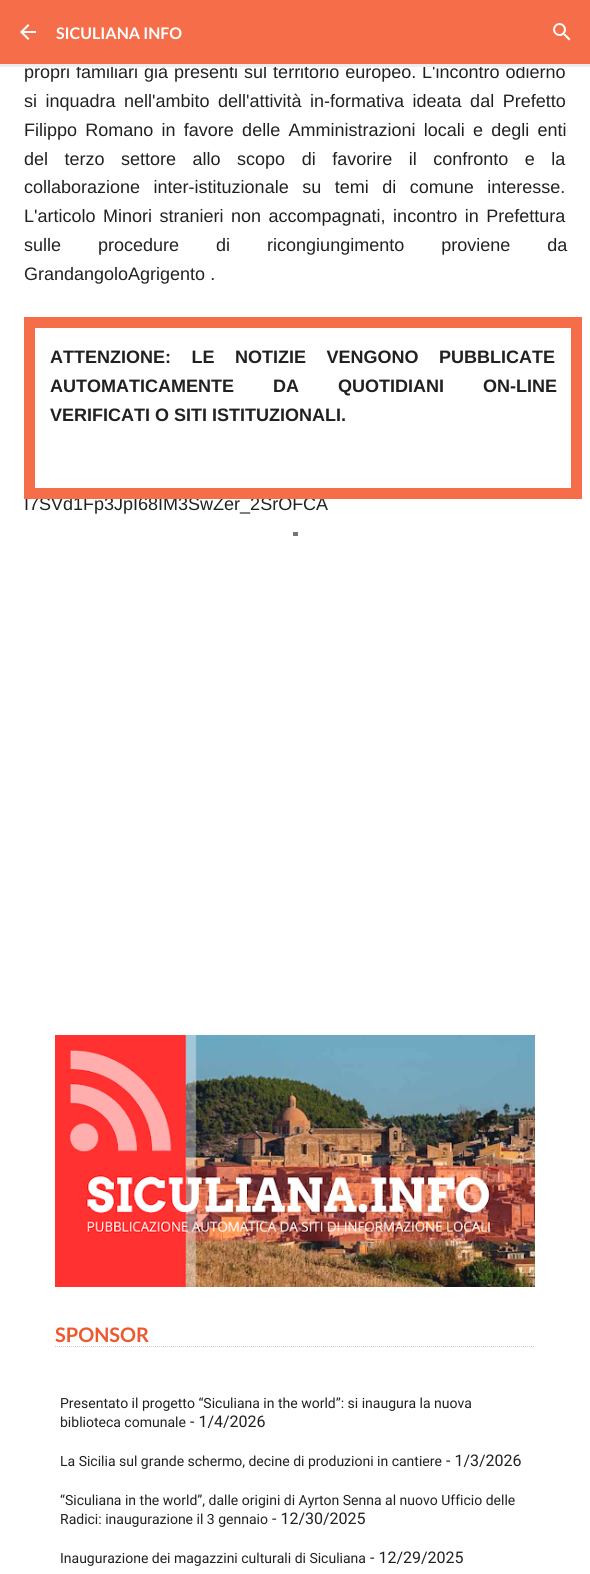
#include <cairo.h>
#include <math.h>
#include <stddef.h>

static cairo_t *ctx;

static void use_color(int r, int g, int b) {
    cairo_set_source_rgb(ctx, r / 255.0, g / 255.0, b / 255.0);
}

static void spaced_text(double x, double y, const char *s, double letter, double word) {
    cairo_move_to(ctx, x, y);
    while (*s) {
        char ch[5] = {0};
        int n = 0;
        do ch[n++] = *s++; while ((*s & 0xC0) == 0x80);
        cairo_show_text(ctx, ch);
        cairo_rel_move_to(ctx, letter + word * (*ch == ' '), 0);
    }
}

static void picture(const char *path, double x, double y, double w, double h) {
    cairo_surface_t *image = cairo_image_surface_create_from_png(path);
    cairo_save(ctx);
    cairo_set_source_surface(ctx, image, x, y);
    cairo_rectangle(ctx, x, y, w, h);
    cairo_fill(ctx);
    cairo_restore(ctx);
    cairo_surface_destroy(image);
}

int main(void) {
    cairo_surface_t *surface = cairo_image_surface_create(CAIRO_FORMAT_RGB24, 590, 1574);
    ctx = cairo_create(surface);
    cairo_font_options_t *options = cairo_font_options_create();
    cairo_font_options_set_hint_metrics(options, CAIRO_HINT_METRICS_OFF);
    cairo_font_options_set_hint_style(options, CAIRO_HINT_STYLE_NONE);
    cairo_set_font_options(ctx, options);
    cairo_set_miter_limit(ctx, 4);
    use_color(255, 255, 255);
    cairo_paint(ctx);
    use_color(245, 110, 73);
    cairo_rectangle(ctx, 0, 0, 590, 64);
    cairo_fill(ctx);
    cairo_select_font_face(ctx, "Liberation Sans", CAIRO_FONT_SLANT_NORMAL, CAIRO_FONT_WEIGHT_NORMAL);
    cairo_set_font_size(ctx, 18);
    use_color(33, 33, 33);
    spaced_text(24, 78, "propri familiari già presenti sul territorio europeo.", 0, 1);
    spaced_text(422, 78, "L'incontro odierno", 0, 1);
    use_color(238, 238, 238);
    cairo_rectangle(ctx, 0, 64, 590, 3);
    cairo_fill(ctx);
    picture("img1.png", 20, 24, 16, 16);
    cairo_select_font_face(ctx, "Lato", CAIRO_FONT_SLANT_NORMAL, CAIRO_FONT_WEIGHT_BOLD);
    cairo_set_font_size(ctx, 16);
    use_color(255, 255, 255);
    cairo_move_to(ctx, 56, 39);
    cairo_show_text(ctx, "SICULIANA INFO");
    picture("img2.png", 553, 23, 18, 18);
    cairo_select_font_face(ctx, "Liberation Sans", CAIRO_FONT_SLANT_NORMAL, CAIRO_FONT_WEIGHT_NORMAL);
    cairo_set_font_size(ctx, 18);
    use_color(33, 33, 33);
    spaced_text(24, 107, "si inquadra nell'ambito dell'attività in-formativa ideata dal Prefetto", 0, 3.5);
    spaced_text(24, 136, "Filippo Romano in favore delle Amministrazioni locali e degli enti", 0, 3.25);
    spaced_text(24, 165, "del terzo settore allo scopo di favorire il confronto e la", 0, 11.5);
    spaced_text(24, 193, "collaborazione inter-istituzionale su temi di comune interesse.", 0, 8.5);
    spaced_text(24, 222, "L'articolo Minori stranieri non accompagnati, incontro in Prefettura", 0, 2.5);
    spaced_text(24, 251, "sulle procedure di ricongiungimento proviene da", 0, 32);
    cairo_move_to(ctx, 24, 280);
    cairo_show_text(ctx, "GrandangoloAgrigento .");
    cairo_move_to(ctx, 24, 510);
    cairo_show_text(ctx, "I7SVd1Fp3JpI68IM3SwZer_2SrOFCA");
    cairo_rectangle(ctx, 29.5, 322.5, 547, 171);
    use_color(245, 110, 73);
    cairo_set_line_width(ctx, 11);
    cairo_stroke(ctx);
    cairo_select_font_face(ctx, "Liberation Sans", CAIRO_FONT_SLANT_NORMAL, CAIRO_FONT_WEIGHT_BOLD);
    use_color(33, 33, 33);
    spaced_text(50, 363, "ATTENZIONE: LE NOTIZIE VENGONO PUBBLICATE", 0, 15.5);
    spaced_text(50, 392, "AUTOMATICAMENTE DA QUOTIDIANI ON-LINE", 0, 34);
    cairo_move_to(ctx, 50, 421);
    cairo_show_text(ctx, "VERIFICATI O SITI ISTITUZIONALI.");
    picture("img3.png", 55, 1035, 480, 252);
    cairo_new_path(ctx);
    cairo_move_to(ctx, 55, 1346.5);
    cairo_line_to(ctx, 535, 1346.5);
    use_color(204, 204, 204);
    cairo_set_line_width(ctx, 1);
    cairo_set_dash(ctx, (double[]){1, 1}, 2, 0);
    cairo_stroke(ctx);
    cairo_select_font_face(ctx, "Lato", CAIRO_FONT_SLANT_NORMAL, CAIRO_FONT_WEIGHT_BOLD);
    cairo_set_font_size(ctx, 20);
    use_color(238, 88, 46);
    cairo_move_to(ctx, 55, 1342);
    cairo_show_text(ctx, "SPONSOR");
    cairo_select_font_face(ctx, "Roboto", CAIRO_FONT_SLANT_NORMAL, CAIRO_FONT_WEIGHT_NORMAL);
    cairo_set_font_size(ctx, 14);
    use_color(33, 33, 33);
    cairo_move_to(ctx, 60, 1408);
    cairo_show_text(ctx, "Presentato il progetto “Siculiana in the world”: si inaugura la nuova");
    cairo_move_to(ctx, 60, 1427);
    cairo_show_text(ctx, "biblioteca comunale");
    cairo_set_font_size(ctx, 16);
    cairo_move_to(ctx, 190, 1427);
    cairo_show_text(ctx, "- 1/4/2026");
    cairo_set_font_size(ctx, 14);
    cairo_move_to(ctx, 60, 1466);
    cairo_show_text(ctx, "La Sicilia sul grande schermo, decine di produzioni in cantiere");
    cairo_set_font_size(ctx, 16);
    cairo_move_to(ctx, 446, 1466);
    cairo_show_text(ctx, "- 1/3/2026");
    cairo_set_font_size(ctx, 14);
    cairo_move_to(ctx, 60, 1505);
    cairo_show_text(ctx, "“Siculiana in the world”, dalle origini di Ayrton Senna al nuovo Ufficio delle");
    cairo_move_to(ctx, 60, 1524);
    cairo_show_text(ctx, "Radici: inaugurazione il 3 gennaio");
    cairo_set_font_size(ctx, 16);
    cairo_move_to(ctx, 272, 1524);
    cairo_show_text(ctx, "- 12/30/2025");
    cairo_set_font_size(ctx, 14);
    cairo_move_to(ctx, 60, 1563);
    cairo_show_text(ctx, "Inaugurazione dei magazzini culturali di Siculiana");
    cairo_set_font_size(ctx, 16);
    cairo_move_to(ctx, 370, 1563);
    cairo_show_text(ctx, "- 12/29/2025");
    use_color(117, 117, 117);
    cairo_rectangle(ctx, 293, 532, 5, 4);
    cairo_fill(ctx);
    cairo_surface_write_to_png(surface, "result.png");
    cairo_font_options_destroy(options);
    cairo_destroy(ctx);
    cairo_surface_destroy(surface);
    return 0;
}
